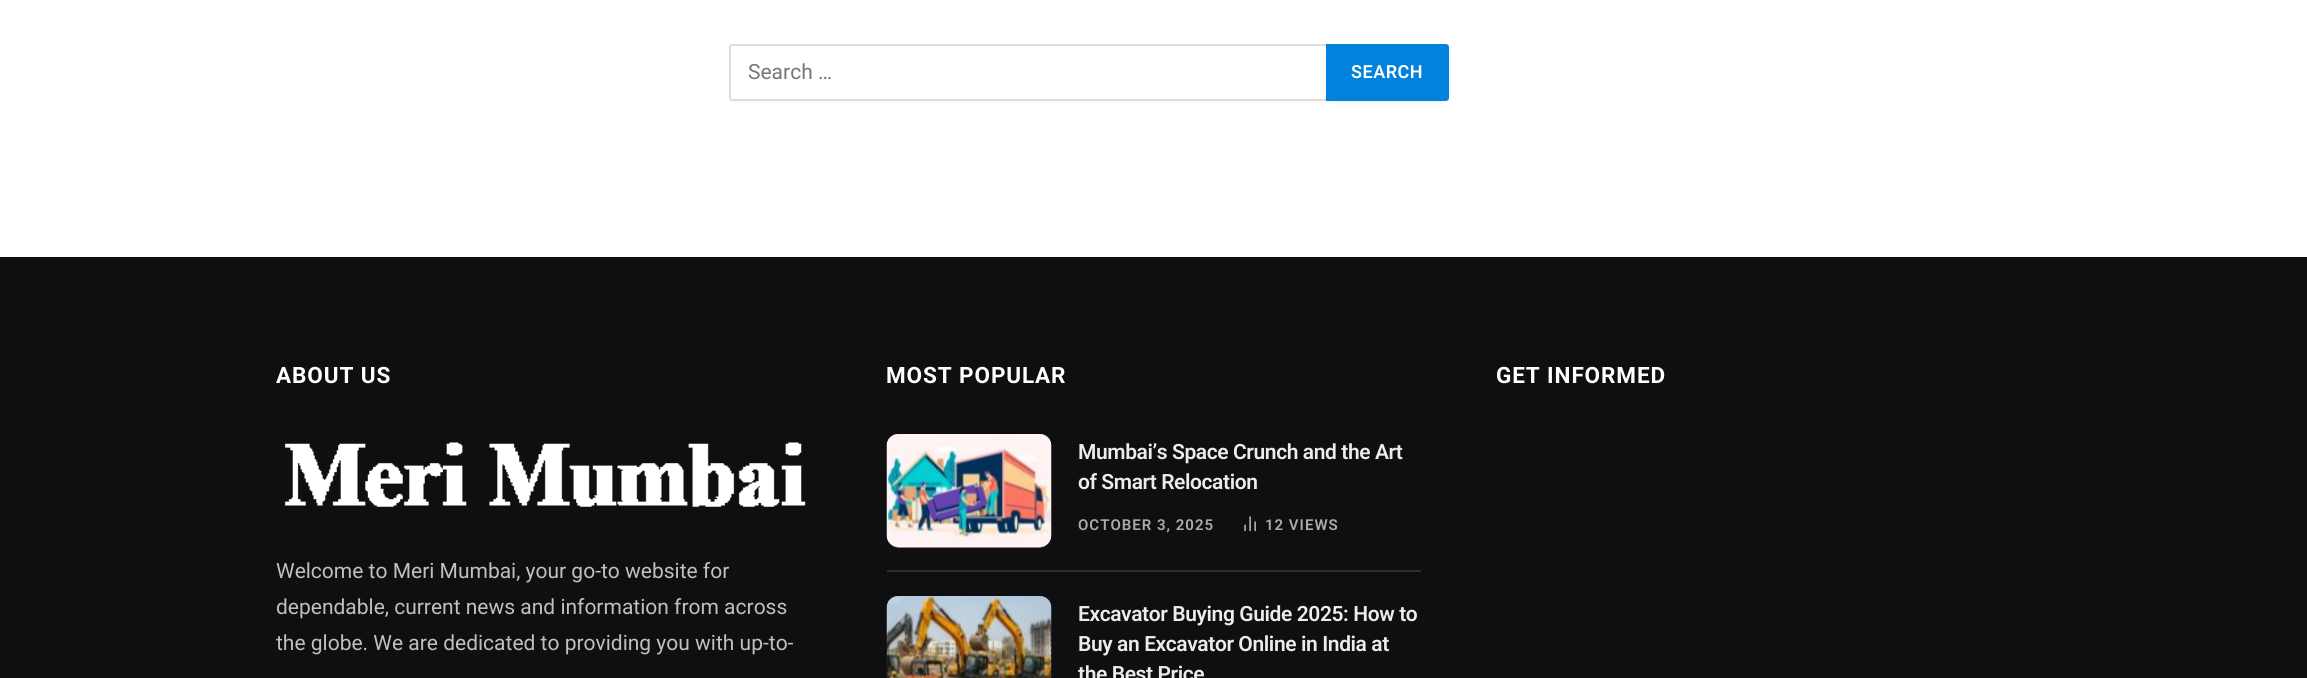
#include <cairo.h>
#include <math.h>
#include <stddef.h>

static cairo_t *ctx;

static void use_color(int r, int g, int b) {
    cairo_set_source_rgb(ctx, r / 255.0, g / 255.0, b / 255.0);
}

static void spaced_text(double x, double y, const char *s, double letter, double word) {
    cairo_move_to(ctx, x, y);
    while (*s) {
        char ch[5] = {0};
        int n = 0;
        do ch[n++] = *s++; while ((*s & 0xC0) == 0x80);
        cairo_show_text(ctx, ch);
        cairo_rel_move_to(ctx, letter + word * (*ch == ' '), 0);
    }
}

static void round_rect(double x, double y, double w, double h, double r) {
    cairo_new_sub_path(ctx);
    cairo_arc(ctx, x + w - r, y + h - r, r, 0, M_PI / 2);
    cairo_arc(ctx, x + r, y + h - r, r, M_PI / 2, M_PI);
    cairo_arc(ctx, x + r, y + r, r, M_PI, 1.5 * M_PI);
    cairo_arc(ctx, x + w - r, y + r, r, 1.5 * M_PI, 2 * M_PI);
    cairo_close_path(ctx);
}

static void shadow(double x, double y, double w, double h, double r, double blur, double alpha) {
    cairo_push_group_with_content(ctx, CAIRO_CONTENT_ALPHA);
    cairo_set_operator(ctx, CAIRO_OPERATOR_SOURCE);
    for (int i = 15; i >= -15 && fmin(w, h) + blur * i / 3 > 0; i -= 2) {
        double e = blur * i / 6;
        cairo_set_source_rgba(ctx, 0, 0, 0, alpha * erfc((i - 1) / 8.5) / 2);
        round_rect(x - e, y - e, w + 2 * e, h + 2 * e, fmax(0, fmin(r + e + blur * .6, fmin(w, h) / 2 + e)));
        cairo_fill(ctx);
    }
    cairo_pattern_t *soft = cairo_pop_group(ctx);
    cairo_mask(ctx, soft);
    cairo_pattern_destroy(soft);
}

static void picture(const char *path, double x, double y, double w, double h) {
    cairo_surface_t *image = cairo_image_surface_create_from_png(path);
    cairo_save(ctx);
    cairo_set_source_surface(ctx, image, x, y);
    cairo_rectangle(ctx, x, y, w, h);
    cairo_fill(ctx);
    cairo_restore(ctx);
    cairo_surface_destroy(image);
}

int main(void) {
    cairo_surface_t *surface = cairo_image_surface_create(CAIRO_FORMAT_RGB24, 2307, 678);
    ctx = cairo_create(surface);
    cairo_font_options_t *options = cairo_font_options_create();
    cairo_font_options_set_hint_metrics(options, CAIRO_HINT_METRICS_OFF);
    cairo_font_options_set_hint_style(options, CAIRO_HINT_STYLE_NONE);
    cairo_set_font_options(ctx, options);
    cairo_set_miter_limit(ctx, 4);
    use_color(255, 255, 255);
    cairo_paint(ctx);
    use_color(0, 0, 0);
    shadow(735, 53, 588, 45, 0, 5, 0.1);
    use_color(255, 255, 255);
    round_rect(730, 45, 598, 55, 2);
    cairo_fill_preserve(ctx);
    use_color(221, 221, 221);
    cairo_stroke(ctx);
    cairo_select_font_face(ctx, "Roboto", CAIRO_FONT_SLANT_NORMAL, CAIRO_FONT_WEIGHT_NORMAL);
    cairo_set_font_size(ctx, 21);
    use_color(119, 119, 119);
    cairo_move_to(ctx, 748, 79);
    cairo_show_text(ctx, "Search …");
    use_color(0, 0, 0);
    shadow(1332, 53, 111, 45, 0, 5, 0.16);
    use_color(2, 130, 220);
    cairo_new_path(ctx);
    cairo_move_to(ctx, 1326, 44);
    cairo_line_to(ctx, 1446, 44);
    cairo_curve_to(ctx, 1447.5, 44, 1449, 45.5, 1449, 47);
    cairo_line_to(ctx, 1449, 98);
    cairo_curve_to(ctx, 1449, 99.5, 1447.5, 101, 1446, 101);
    cairo_line_to(ctx, 1326, 101);
    cairo_close_path(ctx);
    cairo_fill(ctx);
    cairo_select_font_face(ctx, "Roboto SemiBold", CAIRO_FONT_SLANT_NORMAL, CAIRO_FONT_WEIGHT_NORMAL);
    cairo_set_font_size(ctx, 18);
    use_color(255, 255, 255);
    spaced_text(1351, 78, "SEARCH", 0.5, 0);
    use_color(15, 15, 17);
    cairo_rectangle(ctx, 0, 257, 2307, 421);
    cairo_fill(ctx);
    cairo_select_font_face(ctx, "Roboto", CAIRO_FONT_SLANT_NORMAL, CAIRO_FONT_WEIGHT_BOLD);
    cairo_set_font_size(ctx, 22.5);
    use_color(255, 255, 255);
    spaced_text(276, 383, "ABOUT US", 0.9, 0);
    picture("img1.png", 284, 442, 522, 65);
    cairo_select_font_face(ctx, "Roboto", CAIRO_FONT_SLANT_NORMAL, CAIRO_FONT_WEIGHT_NORMAL);
    cairo_set_font_size(ctx, 21);
    use_color(192, 192, 192);
    cairo_move_to(ctx, 276, 578);
    cairo_show_text(ctx, "Welcome to Meri Mumbai, your go-to website for");
    cairo_move_to(ctx, 276, 614);
    cairo_show_text(ctx, "dependable, current news and information from across");
    cairo_move_to(ctx, 276, 650);
    cairo_show_text(ctx, "the globe. We are dedicated to providing you with up-to-");
    cairo_select_font_face(ctx, "Roboto", CAIRO_FONT_SLANT_NORMAL, CAIRO_FONT_WEIGHT_BOLD);
    cairo_set_font_size(ctx, 22.5);
    use_color(255, 255, 255);
    spaced_text(886, 383, "MOST POPULAR", 0.9, 0);
    picture("img2.png", 886, 434, 166, 114);
    cairo_select_font_face(ctx, "Roboto SemiBold", CAIRO_FONT_SLANT_NORMAL, CAIRO_FONT_WEIGHT_NORMAL);
    cairo_set_font_size(ctx, 21);
    use_color(236, 236, 236);
    spaced_text(1078, 459, "Mumbai’s Space Crunch and the Art", -0.4, 0);
    spaced_text(1078, 489, "of Smart Relocation", -0.4, 0);
    cairo_set_font_size(ctx, 15);
    use_color(171, 171, 172);
    spaced_text(1078, 530, "OCTOBER 3, 2025", 1, 0);
    picture("img3.png", 1244, 516, 12, 16);
    spaced_text(1265, 530, "12 VIEWS", 1, 0);
    use_color(46, 46, 48);
    cairo_rectangle(ctx, 887, 570, 534, 2);
    cairo_fill(ctx);
    picture("img4.png", 886, 596, 166, 82);
    cairo_set_font_size(ctx, 21);
    use_color(236, 236, 236);
    spaced_text(1078, 621, "Excavator Buying Guide 2025: How to", -0.4, 0);
    spaced_text(1078, 651, "Buy an Excavator Online in India at", -0.4, 0);
    spaced_text(1078, 681, "the Best Price", -0.4, 0);
    cairo_select_font_face(ctx, "Roboto", CAIRO_FONT_SLANT_NORMAL, CAIRO_FONT_WEIGHT_BOLD);
    cairo_set_font_size(ctx, 22.5);
    use_color(255, 255, 255);
    spaced_text(1496, 383, "GET INFORMED", 0.9, 0);
    cairo_surface_write_to_png(surface, "result.png");
    cairo_font_options_destroy(options);
    cairo_destroy(ctx);
    cairo_surface_destroy(surface);
    return 0;
}
